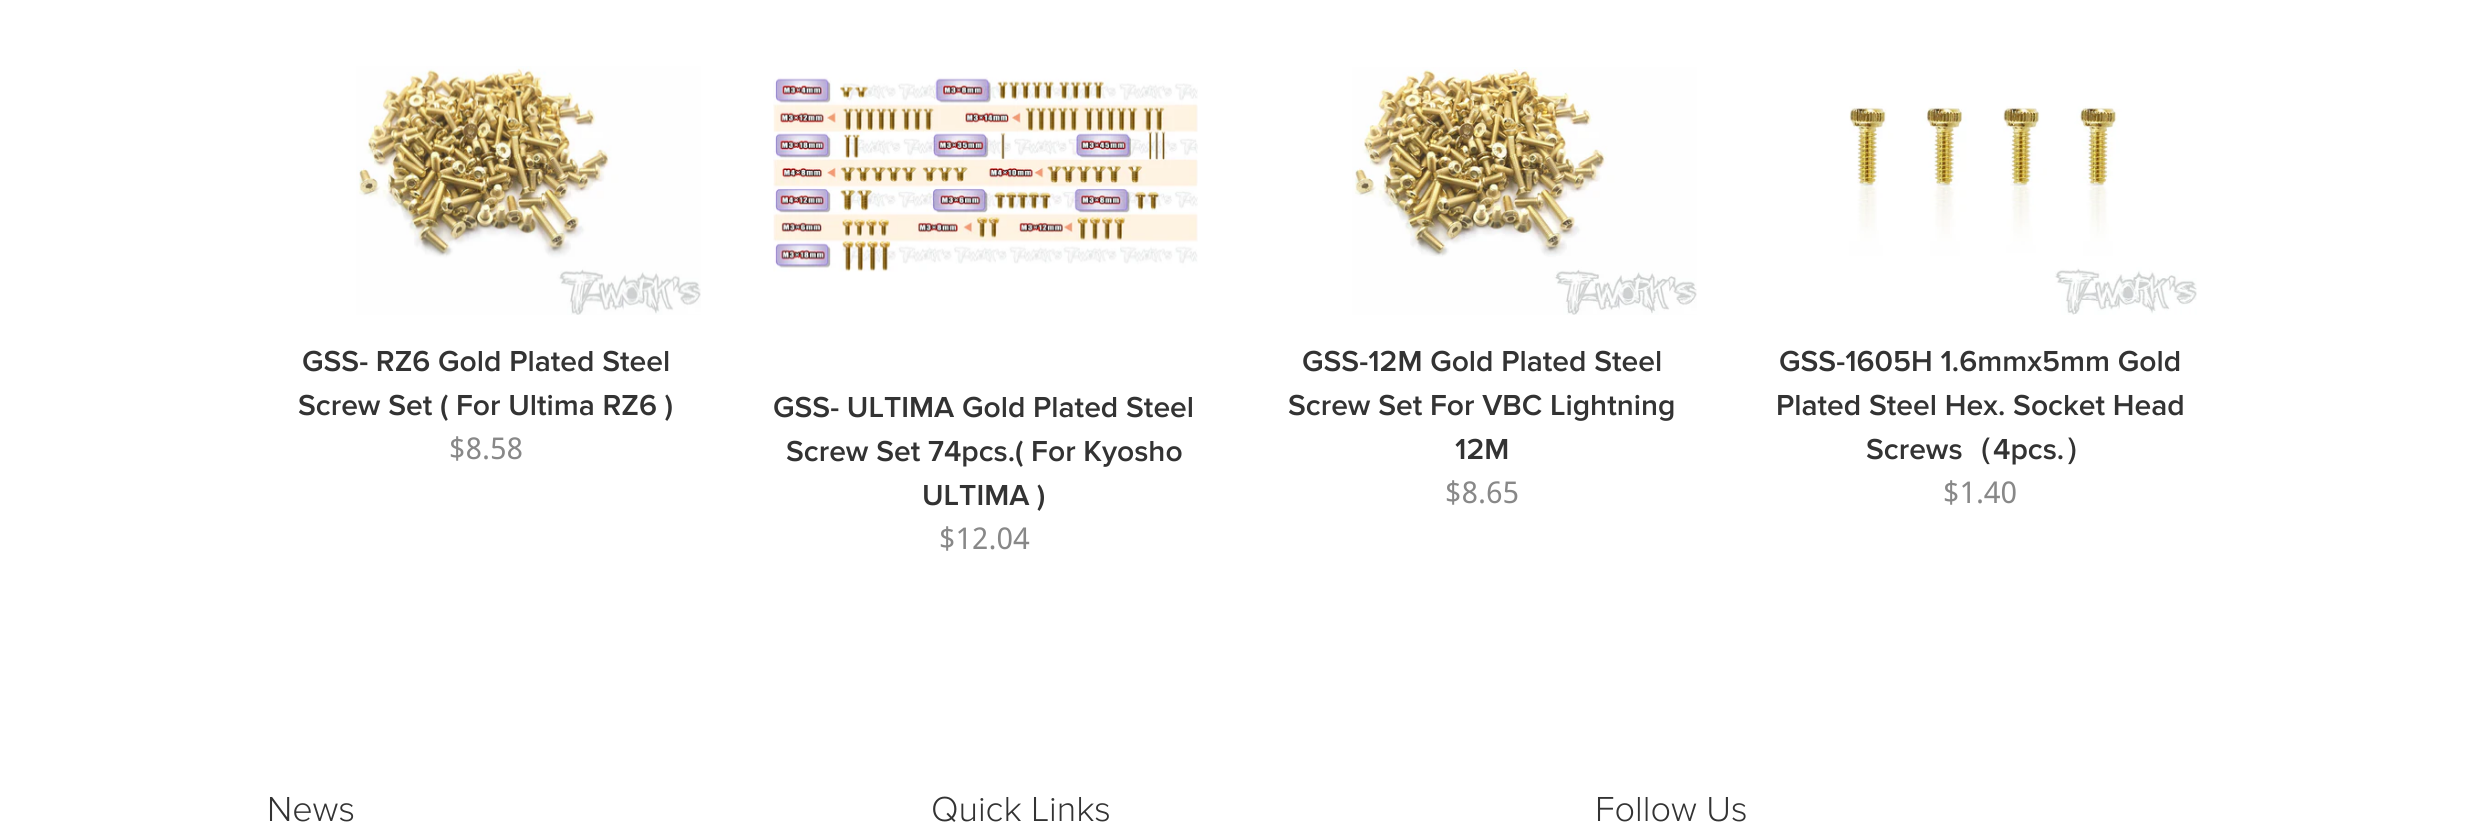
#include <cairo.h>
#include <math.h>
#include <stddef.h>

static cairo_t *ctx;

static void use_color(int r, int g, int b) {
    cairo_set_source_rgb(ctx, r / 255.0, g / 255.0, b / 255.0);
}

static void picture(const char *path, double x, double y, double w, double h) {
    cairo_surface_t *image = cairo_image_surface_create_from_png(path);
    cairo_save(ctx);
    cairo_set_source_surface(ctx, image, x, y);
    cairo_rectangle(ctx, x, y, w, h);
    cairo_fill(ctx);
    cairo_restore(ctx);
    cairo_surface_destroy(image);
}

int main(void) {
    cairo_surface_t *surface = cairo_image_surface_create(CAIRO_FORMAT_RGB24, 2465, 823);
    ctx = cairo_create(surface);
    cairo_font_options_t *options = cairo_font_options_create();
    cairo_font_options_set_hint_metrics(options, CAIRO_HINT_METRICS_OFF);
    cairo_font_options_set_hint_style(options, CAIRO_HINT_STYLE_NONE);
    cairo_set_font_options(ctx, options);
    cairo_set_miter_limit(ctx, 4);
    use_color(255, 255, 255);
    cairo_paint(ctx);
    picture("img1.png", 356, 66, 345, 249);
    cairo_select_font_face(ctx, "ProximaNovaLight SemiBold", CAIRO_FONT_SLANT_NORMAL, CAIRO_FONT_WEIGHT_NORMAL);
    cairo_set_font_size(ctx, 30);
    use_color(51, 51, 51);
    cairo_move_to(ctx, 302, 371);
    cairo_show_text(ctx, "GSS- RZ6 Gold Plated Steel");
    cairo_move_to(ctx, 298, 415);
    cairo_show_text(ctx, "Screw Set ( For Ultima RZ6 )");
    cairo_select_font_face(ctx, "Droid Sans", CAIRO_FONT_SLANT_NORMAL, CAIRO_FONT_WEIGHT_NORMAL);
    use_color(136, 136, 136);
    cairo_move_to(ctx, 449, 459);
    cairo_show_text(ctx, "$8.58");
    picture("img2.png", 773, 77, 425, 195);
    cairo_select_font_face(ctx, "ProximaNovaLight SemiBold", CAIRO_FONT_SLANT_NORMAL, CAIRO_FONT_WEIGHT_NORMAL);
    use_color(51, 51, 51);
    cairo_move_to(ctx, 773, 417);
    cairo_show_text(ctx, "GSS- ULTIMA Gold Plated Steel");
    cairo_move_to(ctx, 786, 461);
    cairo_show_text(ctx, "Screw Set 74pcs.( For Kyosho");
    cairo_move_to(ctx, 922, 505);
    cairo_show_text(ctx, "ULTIMA )");
    cairo_select_font_face(ctx, "Droid Sans", CAIRO_FONT_SLANT_NORMAL, CAIRO_FONT_WEIGHT_NORMAL);
    use_color(136, 136, 136);
    cairo_move_to(ctx, 939, 549);
    cairo_show_text(ctx, "$12.04");
    picture("img3.png", 1352, 67, 345, 248);
    cairo_select_font_face(ctx, "ProximaNovaLight SemiBold", CAIRO_FONT_SLANT_NORMAL, CAIRO_FONT_WEIGHT_NORMAL);
    use_color(51, 51, 51);
    cairo_move_to(ctx, 1302, 371);
    cairo_show_text(ctx, "GSS-12M Gold Plated Steel");
    cairo_move_to(ctx, 1288, 415);
    cairo_show_text(ctx, "Screw Set For VBC Lightning");
    cairo_move_to(ctx, 1455, 459);
    cairo_show_text(ctx, "12M");
    cairo_select_font_face(ctx, "Droid Sans", CAIRO_FONT_SLANT_NORMAL, CAIRO_FONT_WEIGHT_NORMAL);
    use_color(136, 136, 136);
    cairo_move_to(ctx, 1445, 503);
    cairo_show_text(ctx, "$8.65");
    picture("img4.png", 1849, 106, 348, 209);
    cairo_select_font_face(ctx, "ProximaNovaLight SemiBold", CAIRO_FONT_SLANT_NORMAL, CAIRO_FONT_WEIGHT_NORMAL);
    use_color(51, 51, 51);
    cairo_move_to(ctx, 1779, 371);
    cairo_show_text(ctx, "GSS-1605H 1.6mmx5mm Gold");
    cairo_move_to(ctx, 1776, 415);
    cairo_show_text(ctx, "Plated Steel Hex. Socket Head");
    cairo_move_to(ctx, 1866, 459);
    cairo_show_text(ctx, "Screws");
    cairo_select_font_face(ctx, "WenQuanYi Zen Hei", CAIRO_FONT_SLANT_NORMAL, CAIRO_FONT_WEIGHT_BOLD);
    cairo_move_to(ctx, 1963, 459);
    cairo_show_text(ctx, "（");
    cairo_select_font_face(ctx, "ProximaNovaLight SemiBold", CAIRO_FONT_SLANT_NORMAL, CAIRO_FONT_WEIGHT_NORMAL);
    cairo_move_to(ctx, 1993, 459);
    cairo_show_text(ctx, "4pcs.");
    cairo_select_font_face(ctx, "WenQuanYi Zen Hei", CAIRO_FONT_SLANT_NORMAL, CAIRO_FONT_WEIGHT_BOLD);
    cairo_move_to(ctx, 2064, 459);
    cairo_show_text(ctx, "）");
    cairo_select_font_face(ctx, "Droid Sans", CAIRO_FONT_SLANT_NORMAL, CAIRO_FONT_WEIGHT_NORMAL);
    use_color(136, 136, 136);
    cairo_move_to(ctx, 1943, 503);
    cairo_show_text(ctx, "$1.40");
    cairo_select_font_face(ctx, "ProximaNovaLight Light", CAIRO_FONT_SLANT_NORMAL, CAIRO_FONT_WEIGHT_NORMAL);
    cairo_set_font_size(ctx, 36);
    use_color(51, 51, 51);
    cairo_move_to(ctx, 267, 821);
    cairo_show_text(ctx, "News");
    cairo_move_to(ctx, 931, 821);
    cairo_show_text(ctx, "Quick Links");
    cairo_move_to(ctx, 1595, 821);
    cairo_show_text(ctx, "Follow Us");
    cairo_surface_write_to_png(surface, "result.png");
    cairo_font_options_destroy(options);
    cairo_destroy(ctx);
    cairo_surface_destroy(surface);
    return 0;
}
